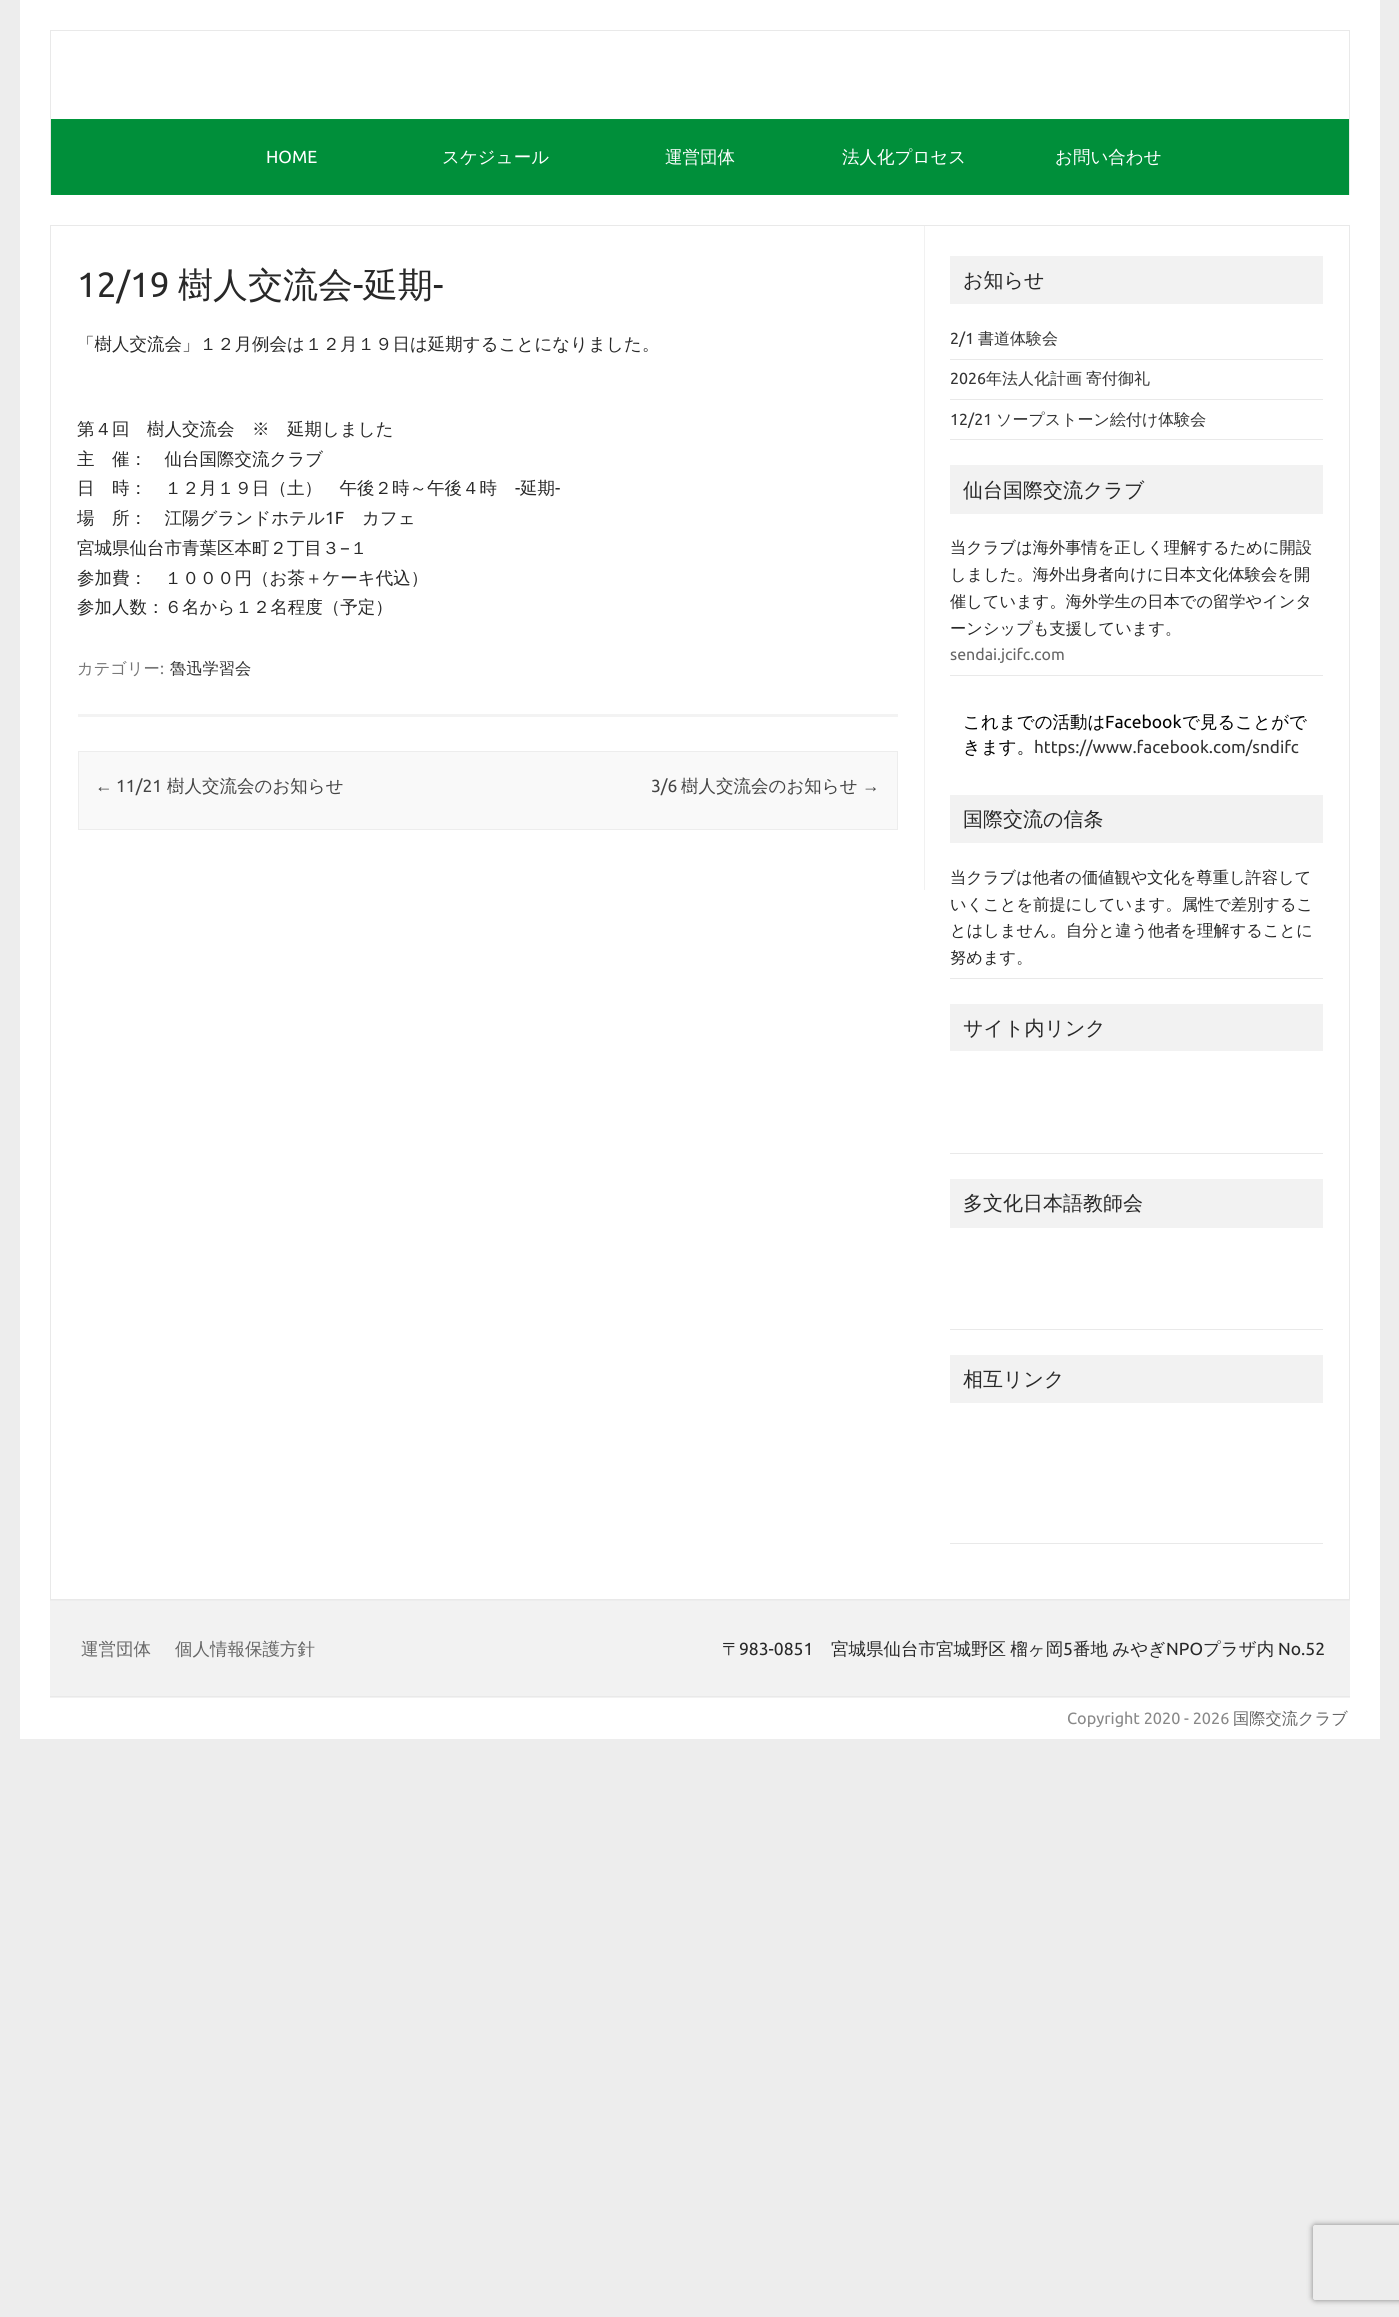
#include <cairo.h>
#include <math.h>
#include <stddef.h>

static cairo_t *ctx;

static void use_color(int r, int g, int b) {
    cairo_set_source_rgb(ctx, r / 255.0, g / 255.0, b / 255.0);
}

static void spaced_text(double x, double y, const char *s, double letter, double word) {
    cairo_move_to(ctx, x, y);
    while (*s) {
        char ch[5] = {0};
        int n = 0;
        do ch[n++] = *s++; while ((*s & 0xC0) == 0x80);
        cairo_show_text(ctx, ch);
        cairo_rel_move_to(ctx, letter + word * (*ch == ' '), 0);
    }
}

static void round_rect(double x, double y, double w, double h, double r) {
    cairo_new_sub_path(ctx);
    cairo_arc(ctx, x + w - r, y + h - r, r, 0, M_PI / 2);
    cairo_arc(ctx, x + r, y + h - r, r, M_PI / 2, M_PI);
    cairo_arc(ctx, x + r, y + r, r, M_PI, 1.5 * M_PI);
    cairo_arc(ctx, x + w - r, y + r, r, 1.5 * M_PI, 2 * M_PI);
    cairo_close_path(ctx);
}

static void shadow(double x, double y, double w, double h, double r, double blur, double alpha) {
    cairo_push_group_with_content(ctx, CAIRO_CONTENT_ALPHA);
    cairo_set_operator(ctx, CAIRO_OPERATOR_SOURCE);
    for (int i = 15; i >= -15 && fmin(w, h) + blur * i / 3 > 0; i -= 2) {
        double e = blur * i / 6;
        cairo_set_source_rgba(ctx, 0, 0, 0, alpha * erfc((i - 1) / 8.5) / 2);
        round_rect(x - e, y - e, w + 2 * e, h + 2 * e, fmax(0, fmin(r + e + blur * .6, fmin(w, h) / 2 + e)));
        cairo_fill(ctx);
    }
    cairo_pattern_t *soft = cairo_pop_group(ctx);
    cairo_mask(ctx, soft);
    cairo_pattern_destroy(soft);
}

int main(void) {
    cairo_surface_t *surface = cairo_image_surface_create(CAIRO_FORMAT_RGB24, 1399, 2317);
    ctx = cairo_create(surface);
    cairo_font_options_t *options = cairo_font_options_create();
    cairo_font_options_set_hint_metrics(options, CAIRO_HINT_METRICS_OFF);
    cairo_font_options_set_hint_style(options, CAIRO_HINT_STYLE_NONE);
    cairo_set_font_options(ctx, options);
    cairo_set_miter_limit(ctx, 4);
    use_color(237, 237, 237);
    cairo_paint(ctx);
    use_color(255, 255, 255);
    cairo_rectangle(ctx, 20, 0, 1360, 1739);
    cairo_fill(ctx);
    use_color(233, 233, 233);
    cairo_rectangle(ctx, 50, 30, 1300, 1);
    cairo_fill(ctx);
    cairo_rectangle(ctx, 1349, 30, 1, 165);
    cairo_fill(ctx);
    cairo_rectangle(ctx, 50, 30, 1, 165);
    cairo_fill(ctx);
    use_color(0, 143, 58);
    cairo_rectangle(ctx, 51, 120, 1298, 74);
    cairo_fill(ctx);
    use_color(0, 150, 59);
    cairo_rectangle(ctx, 51, 119, 1298, 1);
    cairo_fill(ctx);
    cairo_rectangle(ctx, 51, 194, 1298, 1);
    cairo_fill(ctx);
    cairo_select_font_face(ctx, "Ubuntu", CAIRO_FONT_SLANT_NORMAL, CAIRO_FONT_WEIGHT_NORMAL);
    cairo_set_font_size(ctx, 17.5);
    use_color(255, 255, 255);
    cairo_move_to(ctx, 266, 163);
    cairo_show_text(ctx, "HOME");
    cairo_select_font_face(ctx, "WenQuanYi Zen Hei Medium", CAIRO_FONT_SLANT_NORMAL, CAIRO_FONT_WEIGHT_NORMAL);
    cairo_move_to(ctx, 442, 163);
    cairo_show_text(ctx, "スケジュール");
    cairo_move_to(ctx, 665, 163);
    cairo_show_text(ctx, "運営団体");
    cairo_move_to(ctx, 842, 163);
    cairo_show_text(ctx, "法人化プロセス");
    cairo_move_to(ctx, 1055, 163);
    cairo_show_text(ctx, "お問い合わせ");
    cairo_rectangle(ctx, 50.5, 225.5, 1299, 1374);
    use_color(233, 233, 233);
    cairo_set_line_width(ctx, 1);
    cairo_stroke(ctx);
    use_color(241, 241, 241);
    cairo_rectangle(ctx, 924, 226, 1, 664);
    cairo_fill(ctx);
    use_color(243, 243, 243);
    cairo_rectangle(ctx, 78, 714, 820, 3);
    cairo_fill(ctx);
    cairo_select_font_face(ctx, "Ubuntu", CAIRO_FONT_SLANT_NORMAL, CAIRO_FONT_WEIGHT_NORMAL);
    cairo_set_font_size(ctx, 35);
    use_color(40, 40, 40);
    cairo_move_to(ctx, 77, 297);
    cairo_show_text(ctx, "12/19");
    cairo_select_font_face(ctx, "WenQuanYi Zen Hei Medium", CAIRO_FONT_SLANT_NORMAL, CAIRO_FONT_WEIGHT_NORMAL);
    cairo_move_to(ctx, 178, 297);
    cairo_show_text(ctx, "樹人交流会");
    cairo_select_font_face(ctx, "Ubuntu", CAIRO_FONT_SLANT_NORMAL, CAIRO_FONT_WEIGHT_NORMAL);
    cairo_move_to(ctx, 353, 297);
    cairo_show_text(ctx, "-");
    cairo_select_font_face(ctx, "WenQuanYi Zen Hei Medium", CAIRO_FONT_SLANT_NORMAL, CAIRO_FONT_WEIGHT_NORMAL);
    cairo_move_to(ctx, 363, 297);
    cairo_show_text(ctx, "延期");
    cairo_select_font_face(ctx, "Ubuntu", CAIRO_FONT_SLANT_NORMAL, CAIRO_FONT_WEIGHT_NORMAL);
    cairo_move_to(ctx, 433, 297);
    cairo_show_text(ctx, "-");
    cairo_select_font_face(ctx, "WenQuanYi Zen Hei Medium", CAIRO_FONT_SLANT_NORMAL, CAIRO_FONT_WEIGHT_NORMAL);
    cairo_set_font_size(ctx, 17.5);
    cairo_move_to(ctx, 77, 350);
    cairo_show_text(ctx, "「樹人交流会」１２月例会は１２月１９日は延期することになりました。");
    cairo_move_to(ctx, 77, 435);
    cairo_show_text(ctx, "第４回　樹人交流会　※　延期しました");
    cairo_move_to(ctx, 77, 465);
    cairo_show_text(ctx, "主　催：　仙台国際交流クラブ");
    cairo_move_to(ctx, 77, 494);
    cairo_show_text(ctx, "日　時：　１２月１９日（土）　午後２時～午後４時");
    cairo_select_font_face(ctx, "Ubuntu", CAIRO_FONT_SLANT_NORMAL, CAIRO_FONT_WEIGHT_NORMAL);
    cairo_move_to(ctx, 515, 494);
    cairo_show_text(ctx, "-");
    cairo_select_font_face(ctx, "WenQuanYi Zen Hei Medium", CAIRO_FONT_SLANT_NORMAL, CAIRO_FONT_WEIGHT_NORMAL);
    cairo_move_to(ctx, 520, 494);
    cairo_show_text(ctx, "延期");
    cairo_select_font_face(ctx, "Ubuntu", CAIRO_FONT_SLANT_NORMAL, CAIRO_FONT_WEIGHT_NORMAL);
    cairo_move_to(ctx, 555, 494);
    cairo_show_text(ctx, "-");
    cairo_select_font_face(ctx, "WenQuanYi Zen Hei Medium", CAIRO_FONT_SLANT_NORMAL, CAIRO_FONT_WEIGHT_NORMAL);
    cairo_move_to(ctx, 77, 524);
    cairo_show_text(ctx, "場　所：　江陽グランドホテル");
    cairo_select_font_face(ctx, "Ubuntu", CAIRO_FONT_SLANT_NORMAL, CAIRO_FONT_WEIGHT_NORMAL);
    cairo_move_to(ctx, 325, 524);
    cairo_show_text(ctx, "1F");
    cairo_select_font_face(ctx, "WenQuanYi Zen Hei Medium", CAIRO_FONT_SLANT_NORMAL, CAIRO_FONT_WEIGHT_NORMAL);
    cairo_move_to(ctx, 362, 524);
    cairo_show_text(ctx, "カフェ");
    cairo_move_to(ctx, 77, 554);
    cairo_show_text(ctx, "宮城県仙台市青葉区本町２丁目３");
    cairo_select_font_face(ctx, "Ubuntu", CAIRO_FONT_SLANT_NORMAL, CAIRO_FONT_WEIGHT_NORMAL);
    cairo_move_to(ctx, 340, 554);
    cairo_show_text(ctx, "−");
    cairo_select_font_face(ctx, "WenQuanYi Zen Hei Medium", CAIRO_FONT_SLANT_NORMAL, CAIRO_FONT_WEIGHT_NORMAL);
    cairo_move_to(ctx, 350, 554);
    cairo_show_text(ctx, "１");
    cairo_move_to(ctx, 77, 584);
    cairo_show_text(ctx, "参加費：　１０００円（お茶＋ケーキ代込）");
    cairo_move_to(ctx, 77, 613);
    cairo_show_text(ctx, "参加人数：６名から１２名程度（予定）");
    cairo_set_font_size(ctx, 16.25);
    use_color(117, 117, 117);
    cairo_move_to(ctx, 77, 674);
    cairo_show_text(ctx, "カテゴリー");
    cairo_select_font_face(ctx, "Ubuntu", CAIRO_FONT_SLANT_NORMAL, CAIRO_FONT_WEIGHT_NORMAL);
    cairo_move_to(ctx, 160, 674);
    cairo_show_text(ctx, ":");
    cairo_select_font_face(ctx, "WenQuanYi Zen Hei Medium", CAIRO_FONT_SLANT_NORMAL, CAIRO_FONT_WEIGHT_NORMAL);
    use_color(51, 51, 51);
    cairo_move_to(ctx, 170, 674);
    cairo_show_text(ctx, "魯迅学習会");
    use_color(249, 249, 249);
    cairo_rectangle(ctx, 78.5, 751.5, 819, 78);
    cairo_fill_preserve(ctx);
    use_color(237, 237, 237);
    cairo_stroke(ctx);
    cairo_select_font_face(ctx, "Liberation Sans", CAIRO_FONT_SLANT_NORMAL, CAIRO_FONT_WEIGHT_NORMAL);
    cairo_set_font_size(ctx, 17.5);
    use_color(68, 68, 68);
    cairo_move_to(ctx, 95, 792);
    cairo_show_text(ctx, "←");
    cairo_select_font_face(ctx, "Ubuntu", CAIRO_FONT_SLANT_NORMAL, CAIRO_FONT_WEIGHT_NORMAL);
    cairo_move_to(ctx, 116, 792);
    cairo_show_text(ctx, "11/21");
    cairo_select_font_face(ctx, "WenQuanYi Zen Hei Medium", CAIRO_FONT_SLANT_NORMAL, CAIRO_FONT_WEIGHT_NORMAL);
    cairo_move_to(ctx, 167, 792);
    cairo_show_text(ctx, "樹人交流会のお知らせ");
    cairo_select_font_face(ctx, "Ubuntu", CAIRO_FONT_SLANT_NORMAL, CAIRO_FONT_WEIGHT_NORMAL);
    cairo_move_to(ctx, 651, 792);
    cairo_show_text(ctx, "3/6");
    cairo_select_font_face(ctx, "WenQuanYi Zen Hei Medium", CAIRO_FONT_SLANT_NORMAL, CAIRO_FONT_WEIGHT_NORMAL);
    cairo_move_to(ctx, 681, 792);
    cairo_show_text(ctx, "樹人交流会のお知らせ");
    cairo_select_font_face(ctx, "Liberation Sans", CAIRO_FONT_SLANT_NORMAL, CAIRO_FONT_WEIGHT_NORMAL);
    cairo_move_to(ctx, 862, 792);
    cairo_show_text(ctx, "→");
    use_color(242, 242, 242);
    cairo_rectangle(ctx, 950, 256, 373, 48);
    cairo_fill(ctx);
    cairo_select_font_face(ctx, "WenQuanYi Zen Hei Medium", CAIRO_FONT_SLANT_NORMAL, CAIRO_FONT_WEIGHT_NORMAL);
    cairo_set_font_size(ctx, 20);
    use_color(40, 40, 40);
    cairo_move_to(ctx, 963, 287);
    cairo_show_text(ctx, "お知らせ");
    use_color(233, 233, 233);
    cairo_rectangle(ctx, 950, 359, 373, 1);
    cairo_fill(ctx);
    cairo_select_font_face(ctx, "Ubuntu", CAIRO_FONT_SLANT_NORMAL, CAIRO_FONT_WEIGHT_NORMAL);
    cairo_set_font_size(ctx, 16);
    use_color(51, 51, 51);
    cairo_move_to(ctx, 950, 344);
    cairo_show_text(ctx, "2/1");
    cairo_select_font_face(ctx, "WenQuanYi Zen Hei Medium", CAIRO_FONT_SLANT_NORMAL, CAIRO_FONT_WEIGHT_NORMAL);
    cairo_move_to(ctx, 978, 344);
    cairo_show_text(ctx, "書道体験会");
    use_color(233, 233, 233);
    cairo_rectangle(ctx, 950, 399, 373, 1);
    cairo_fill(ctx);
    cairo_select_font_face(ctx, "Ubuntu", CAIRO_FONT_SLANT_NORMAL, CAIRO_FONT_WEIGHT_NORMAL);
    use_color(51, 51, 51);
    cairo_move_to(ctx, 950, 384);
    cairo_show_text(ctx, "2026");
    cairo_select_font_face(ctx, "WenQuanYi Zen Hei Medium", CAIRO_FONT_SLANT_NORMAL, CAIRO_FONT_WEIGHT_NORMAL);
    cairo_move_to(ctx, 986, 384);
    cairo_show_text(ctx, "年法人化計画");
    cairo_move_to(ctx, 1086, 384);
    cairo_show_text(ctx, "寄付御礼");
    use_color(233, 233, 233);
    cairo_rectangle(ctx, 950, 439, 373, 1);
    cairo_fill(ctx);
    cairo_select_font_face(ctx, "Ubuntu", CAIRO_FONT_SLANT_NORMAL, CAIRO_FONT_WEIGHT_NORMAL);
    use_color(51, 51, 51);
    cairo_move_to(ctx, 950, 425);
    cairo_show_text(ctx, "12/21");
    cairo_select_font_face(ctx, "WenQuanYi Zen Hei Medium", CAIRO_FONT_SLANT_NORMAL, CAIRO_FONT_WEIGHT_NORMAL);
    cairo_move_to(ctx, 996, 425);
    cairo_show_text(ctx, "ソープストーン絵付け体験会");
    use_color(242, 242, 242);
    cairo_rectangle(ctx, 950, 465, 373, 49);
    cairo_fill(ctx);
    cairo_set_font_size(ctx, 20);
    use_color(40, 40, 40);
    cairo_move_to(ctx, 963, 497);
    cairo_show_text(ctx, "仙台国際交流クラブ");
    use_color(233, 233, 233);
    cairo_rectangle(ctx, 950, 675, 373, 1);
    cairo_fill(ctx);
    cairo_set_font_size(ctx, 16.25);
    use_color(40, 40, 40);
    cairo_move_to(ctx, 950, 553);
    cairo_show_text(ctx, "当クラブは海外事情を正しく理解するために開設");
    cairo_move_to(ctx, 950, 580);
    cairo_show_text(ctx, "しました。海外出身者向けに日本文化体験会を開");
    cairo_move_to(ctx, 950, 607);
    cairo_show_text(ctx, "催しています。海外学生の日本での留学やインタ");
    cairo_move_to(ctx, 950, 634);
    cairo_show_text(ctx, "ーンシップも支援しています。");
    cairo_select_font_face(ctx, "Ubuntu", CAIRO_FONT_SLANT_NORMAL, CAIRO_FONT_WEIGHT_NORMAL);
    cairo_set_font_size(ctx, 16);
    use_color(102, 102, 102);
    cairo_move_to(ctx, 950, 660);
    cairo_show_text(ctx, "sendai.jcifc.com");
    cairo_select_font_face(ctx, "WenQuanYi Zen Hei Medium", CAIRO_FONT_SLANT_NORMAL, CAIRO_FONT_WEIGHT_NORMAL);
    cairo_set_font_size(ctx, 17.5);
    use_color(0, 0, 0);
    cairo_move_to(ctx, 963, 728);
    cairo_show_text(ctx, "これまでの活動は");
    cairo_select_font_face(ctx, "Ubuntu", CAIRO_FONT_SLANT_NORMAL, CAIRO_FONT_WEIGHT_NORMAL);
    cairo_move_to(ctx, 1105, 728);
    cairo_show_text(ctx, "Facebook");
    cairo_select_font_face(ctx, "WenQuanYi Zen Hei Medium", CAIRO_FONT_SLANT_NORMAL, CAIRO_FONT_WEIGHT_NORMAL);
    cairo_move_to(ctx, 1182, 728);
    cairo_show_text(ctx, "で見ることがで");
    cairo_move_to(ctx, 963, 753);
    cairo_show_text(ctx, "きます。");
    cairo_select_font_face(ctx, "Ubuntu", CAIRO_FONT_SLANT_NORMAL, CAIRO_FONT_WEIGHT_NORMAL);
    cairo_set_font_size(ctx, 17.1);
    use_color(51, 51, 51);
    cairo_move_to(ctx, 1034, 753);
    cairo_show_text(ctx, "https://www.facebook.com/sndifc");
    use_color(242, 242, 242);
    cairo_rectangle(ctx, 950, 795, 373, 48);
    cairo_fill(ctx);
    cairo_select_font_face(ctx, "WenQuanYi Zen Hei Medium", CAIRO_FONT_SLANT_NORMAL, CAIRO_FONT_WEIGHT_NORMAL);
    cairo_set_font_size(ctx, 20);
    use_color(40, 40, 40);
    cairo_move_to(ctx, 963, 826);
    cairo_show_text(ctx, "国際交流の信条");
    use_color(233, 233, 233);
    cairo_rectangle(ctx, 950, 978, 373, 1);
    cairo_fill(ctx);
    cairo_set_font_size(ctx, 16.25);
    use_color(40, 40, 40);
    cairo_move_to(ctx, 950, 883);
    cairo_show_text(ctx, "当クラブは他者の価値観や文化を尊重し許容して");
    cairo_move_to(ctx, 950, 910);
    cairo_show_text(ctx, "いくことを前提にしています。属性で差別するこ");
    cairo_move_to(ctx, 950, 936);
    cairo_show_text(ctx, "とはしません。自分と違う他者を理解することに");
    cairo_move_to(ctx, 950, 963);
    cairo_show_text(ctx, "努めます。");
    use_color(242, 242, 242);
    cairo_rectangle(ctx, 950, 1004, 373, 47);
    cairo_fill(ctx);
    cairo_set_font_size(ctx, 20);
    use_color(40, 40, 40);
    cairo_move_to(ctx, 963, 1035);
    cairo_show_text(ctx, "サイト内リンク");
    use_color(233, 233, 233);
    cairo_rectangle(ctx, 950, 1153, 373, 1);
    cairo_fill(ctx);
    use_color(242, 242, 242);
    cairo_rectangle(ctx, 950, 1179, 373, 49);
    cairo_fill(ctx);
    use_color(40, 40, 40);
    cairo_move_to(ctx, 963, 1210);
    cairo_show_text(ctx, "多文化日本語教師会");
    use_color(233, 233, 233);
    cairo_rectangle(ctx, 950, 1329, 373, 1);
    cairo_fill(ctx);
    use_color(242, 242, 242);
    cairo_rectangle(ctx, 950, 1355, 373, 48);
    cairo_fill(ctx);
    use_color(40, 40, 40);
    cairo_move_to(ctx, 963, 1386);
    cairo_show_text(ctx, "相互リンク");
    use_color(233, 233, 233);
    cairo_rectangle(ctx, 950, 1543, 373, 1);
    cairo_fill(ctx);
    use_color(242, 242, 242);
    cairo_rectangle(ctx, 50, 1601, 1300, 97);
    cairo_fill(ctx);
    use_color(237, 237, 237);
    cairo_rectangle(ctx, 50, 1600, 1300, 1);
    cairo_fill(ctx);
    use_color(233, 233, 233);
    cairo_rectangle(ctx, 50, 1696, 1300, 1);
    cairo_fill(ctx);
    cairo_set_font_size(ctx, 17.5);
    use_color(102, 102, 102);
    cairo_move_to(ctx, 81, 1655);
    cairo_show_text(ctx, "運営団体");
    cairo_move_to(ctx, 175, 1655);
    cairo_show_text(ctx, "個人情報保護方針");
    use_color(40, 40, 40);
    cairo_move_to(ctx, 722, 1655);
    cairo_show_text(ctx, "〒");
    cairo_select_font_face(ctx, "Ubuntu", CAIRO_FONT_SLANT_NORMAL, CAIRO_FONT_WEIGHT_NORMAL);
    cairo_move_to(ctx, 739, 1655);
    cairo_show_text(ctx, "983-0851");
    cairo_select_font_face(ctx, "WenQuanYi Zen Hei Medium", CAIRO_FONT_SLANT_NORMAL, CAIRO_FONT_WEIGHT_NORMAL);
    spaced_text(831, 1655, "宮城県仙台市宮城野区 榴ヶ岡", 0, -1);
    cairo_select_font_face(ctx, "Ubuntu", CAIRO_FONT_SLANT_NORMAL, CAIRO_FONT_WEIGHT_NORMAL);
    cairo_move_to(ctx, 1063, 1655);
    cairo_show_text(ctx, "5");
    cairo_select_font_face(ctx, "WenQuanYi Zen Hei Medium", CAIRO_FONT_SLANT_NORMAL, CAIRO_FONT_WEIGHT_NORMAL);
    spaced_text(1073, 1655, "番地 みやぎ", 0, -1);
    cairo_select_font_face(ctx, "Ubuntu", CAIRO_FONT_SLANT_NORMAL, CAIRO_FONT_WEIGHT_NORMAL);
    cairo_move_to(ctx, 1166, 1655);
    cairo_show_text(ctx, "NPO");
    cairo_select_font_face(ctx, "WenQuanYi Zen Hei Medium", CAIRO_FONT_SLANT_NORMAL, CAIRO_FONT_WEIGHT_NORMAL);
    cairo_move_to(ctx, 1203, 1655);
    cairo_show_text(ctx, "プラザ内");
    cairo_select_font_face(ctx, "Ubuntu", CAIRO_FONT_SLANT_NORMAL, CAIRO_FONT_WEIGHT_NORMAL);
    cairo_move_to(ctx, 1278, 1655);
    cairo_show_text(ctx, "No.52");
    cairo_set_font_size(ctx, 16.25);
    use_color(136, 136, 136);
    cairo_move_to(ctx, 1067, 1724);
    cairo_show_text(ctx, "Copyright 2020 - 2026");
    cairo_select_font_face(ctx, "WenQuanYi Zen Hei Medium", CAIRO_FONT_SLANT_NORMAL, CAIRO_FONT_WEIGHT_NORMAL);
    use_color(102, 102, 102);
    cairo_move_to(ctx, 1233, 1724);
    cairo_show_text(ctx, "国際交流クラブ");
    cairo_save(ctx);
    cairo_set_fill_rule(ctx, CAIRO_FILL_RULE_EVEN_ODD);
    cairo_new_path(ctx);
    cairo_move_to(ctx, 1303, 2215);
    cairo_line_to(ctx, 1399, 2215);
    cairo_line_to(ctx, 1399, 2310);
    cairo_line_to(ctx, 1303, 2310);
    cairo_close_path(ctx);
    cairo_move_to(ctx, 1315.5, 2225);
    cairo_line_to(ctx, 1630.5, 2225);
    cairo_curve_to(ctx, 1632, 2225, 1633, 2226, 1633, 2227.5);
    cairo_line_to(ctx, 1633, 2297.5);
    cairo_curve_to(ctx, 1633, 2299, 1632, 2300, 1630.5, 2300);
    cairo_line_to(ctx, 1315.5, 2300);
    cairo_curve_to(ctx, 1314, 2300, 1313, 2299, 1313, 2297.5);
    cairo_line_to(ctx, 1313, 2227.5);
    cairo_curve_to(ctx, 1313, 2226, 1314, 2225, 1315.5, 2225);
    cairo_close_path(ctx);
    cairo_clip(ctx);
    use_color(128, 128, 128);
    shadow(1313, 2225, 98, 75, 2.5, 3, 1);
    cairo_restore(ctx);
    cairo_surface_write_to_png(surface, "result.png");
    cairo_font_options_destroy(options);
    cairo_destroy(ctx);
    cairo_surface_destroy(surface);
    return 0;
}
